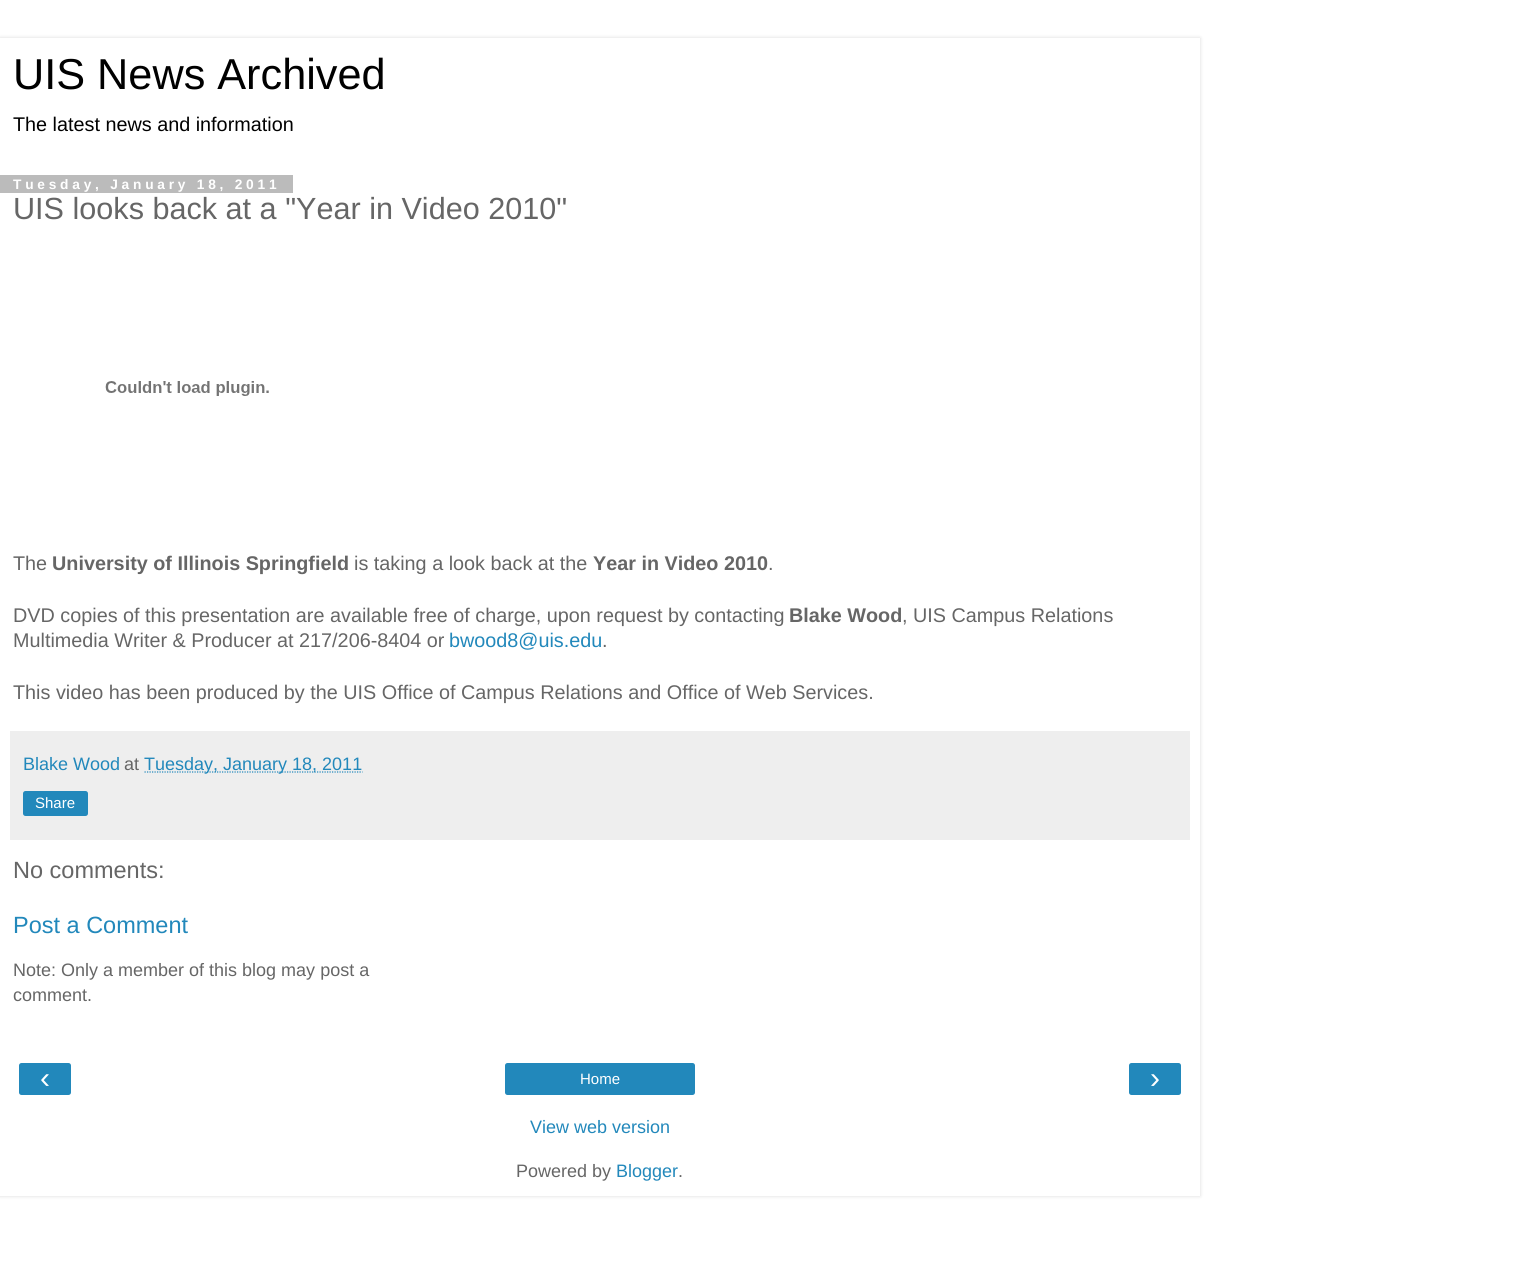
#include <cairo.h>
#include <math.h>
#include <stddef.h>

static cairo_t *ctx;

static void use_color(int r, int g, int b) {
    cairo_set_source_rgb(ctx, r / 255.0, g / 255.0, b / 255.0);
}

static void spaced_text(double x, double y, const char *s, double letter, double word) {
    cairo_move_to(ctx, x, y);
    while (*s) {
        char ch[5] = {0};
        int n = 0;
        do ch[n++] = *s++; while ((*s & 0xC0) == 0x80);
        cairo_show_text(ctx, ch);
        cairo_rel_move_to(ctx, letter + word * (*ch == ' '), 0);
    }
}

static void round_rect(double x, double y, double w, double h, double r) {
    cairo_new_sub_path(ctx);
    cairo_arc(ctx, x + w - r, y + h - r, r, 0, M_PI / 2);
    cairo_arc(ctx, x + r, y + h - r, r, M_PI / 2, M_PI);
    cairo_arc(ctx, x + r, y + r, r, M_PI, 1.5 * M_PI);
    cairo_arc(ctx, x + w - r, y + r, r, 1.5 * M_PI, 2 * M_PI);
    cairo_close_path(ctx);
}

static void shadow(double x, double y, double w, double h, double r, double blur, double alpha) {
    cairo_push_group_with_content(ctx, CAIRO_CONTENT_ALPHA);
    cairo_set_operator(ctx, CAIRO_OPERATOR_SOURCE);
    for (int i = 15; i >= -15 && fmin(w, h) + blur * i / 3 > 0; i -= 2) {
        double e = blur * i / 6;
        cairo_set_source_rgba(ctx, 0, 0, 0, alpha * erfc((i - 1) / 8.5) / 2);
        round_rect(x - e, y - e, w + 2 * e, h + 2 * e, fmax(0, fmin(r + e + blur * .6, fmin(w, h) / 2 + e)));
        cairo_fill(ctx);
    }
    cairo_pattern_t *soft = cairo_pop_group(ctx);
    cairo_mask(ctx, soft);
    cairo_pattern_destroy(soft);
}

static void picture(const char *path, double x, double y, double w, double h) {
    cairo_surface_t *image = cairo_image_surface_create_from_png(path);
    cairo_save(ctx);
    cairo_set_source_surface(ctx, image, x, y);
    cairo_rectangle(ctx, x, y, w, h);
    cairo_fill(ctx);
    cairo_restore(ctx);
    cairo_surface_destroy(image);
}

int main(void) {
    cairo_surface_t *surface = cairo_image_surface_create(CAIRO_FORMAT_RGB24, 1514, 1279);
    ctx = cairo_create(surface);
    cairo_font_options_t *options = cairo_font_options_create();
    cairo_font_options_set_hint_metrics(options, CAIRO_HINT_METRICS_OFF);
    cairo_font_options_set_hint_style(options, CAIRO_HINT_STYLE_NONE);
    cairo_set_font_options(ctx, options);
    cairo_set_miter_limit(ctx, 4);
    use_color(255, 255, 255);
    cairo_paint(ctx);
    cairo_save(ctx);
    cairo_set_fill_rule(ctx, CAIRO_FILL_RULE_EVEN_ODD);
    cairo_new_path(ctx);
    cairo_move_to(ctx, 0, 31);
    cairo_line_to(ctx, 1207, 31);
    cairo_line_to(ctx, 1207, 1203);
    cairo_line_to(ctx, 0, 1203);
    cairo_close_path(ctx);
    cairo_move_to(ctx, 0, 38);
    cairo_line_to(ctx, 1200, 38);
    cairo_line_to(ctx, 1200, 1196);
    cairo_line_to(ctx, 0, 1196);
    cairo_close_path(ctx);
    cairo_clip(ctx);
    use_color(0, 0, 0);
    shadow(0, 38, 1200, 1158, 0, 2, 0.15);
    cairo_restore(ctx);
    cairo_select_font_face(ctx, "Liberation Sans", CAIRO_FONT_SLANT_NORMAL, CAIRO_FONT_WEIGHT_NORMAL);
    cairo_set_font_size(ctx, 43.25);
    use_color(0, 0, 0);
    cairo_move_to(ctx, 13, 89);
    cairo_show_text(ctx, "UIS News Archived");
    cairo_set_font_size(ctx, 19.8);
    cairo_move_to(ctx, 13, 131);
    cairo_show_text(ctx, "The latest news and information");
    use_color(187, 187, 187);
    cairo_rectangle(ctx, 0, 175, 293, 18);
    cairo_fill(ctx);
    cairo_select_font_face(ctx, "Liberation Sans", CAIRO_FONT_SLANT_NORMAL, CAIRO_FONT_WEIGHT_BOLD);
    cairo_set_font_size(ctx, 13.75);
    use_color(255, 255, 255);
    spaced_text(13, 189, "Tuesday, January 18, 2011", 3.75, 0);
    cairo_select_font_face(ctx, "Liberation Sans", CAIRO_FONT_SLANT_NORMAL, CAIRO_FONT_WEIGHT_NORMAL);
    cairo_set_font_size(ctx, 30.6);
    use_color(102, 102, 102);
    cairo_move_to(ctx, 13, 219);
    cairo_show_text(ctx, "UIS looks back at a \"Year in Video 2010\"");
    picture("img1.png", 105, 381, 164, 15);
    cairo_set_font_size(ctx, 19.8);
    cairo_move_to(ctx, 13, 570);
    cairo_show_text(ctx, "The");
    cairo_select_font_face(ctx, "Liberation Sans", CAIRO_FONT_SLANT_NORMAL, CAIRO_FONT_WEIGHT_BOLD);
    cairo_move_to(ctx, 52, 570);
    cairo_show_text(ctx, "University of Illinois Springfield");
    cairo_select_font_face(ctx, "Liberation Sans", CAIRO_FONT_SLANT_NORMAL, CAIRO_FONT_WEIGHT_NORMAL);
    cairo_move_to(ctx, 354, 570);
    cairo_show_text(ctx, "is taking a look back at the");
    cairo_select_font_face(ctx, "Liberation Sans", CAIRO_FONT_SLANT_NORMAL, CAIRO_FONT_WEIGHT_BOLD);
    cairo_move_to(ctx, 593, 570);
    cairo_show_text(ctx, "Year in Video 2010");
    cairo_select_font_face(ctx, "Liberation Sans", CAIRO_FONT_SLANT_NORMAL, CAIRO_FONT_WEIGHT_NORMAL);
    cairo_move_to(ctx, 768, 570);
    cairo_show_text(ctx, ".");
    cairo_move_to(ctx, 13, 622);
    cairo_show_text(ctx, "DVD copies of this presentation are available free of charge, upon request by contacting");
    cairo_select_font_face(ctx, "Liberation Sans", CAIRO_FONT_SLANT_NORMAL, CAIRO_FONT_WEIGHT_BOLD);
    cairo_move_to(ctx, 789, 622);
    cairo_show_text(ctx, "Blake Wood");
    cairo_select_font_face(ctx, "Liberation Sans", CAIRO_FONT_SLANT_NORMAL, CAIRO_FONT_WEIGHT_NORMAL);
    cairo_move_to(ctx, 902, 622);
    cairo_show_text(ctx, ", UIS Campus Relations");
    cairo_move_to(ctx, 13, 647);
    cairo_show_text(ctx, "Multimedia Writer & Producer at 217/206-8404 or");
    use_color(34, 136, 187);
    cairo_move_to(ctx, 449, 647);
    cairo_show_text(ctx, "bwood8@uis.edu");
    use_color(102, 102, 102);
    cairo_move_to(ctx, 602, 647);
    cairo_show_text(ctx, ".");
    cairo_move_to(ctx, 13, 699);
    cairo_show_text(ctx, "This video has been produced by the UIS Office of Campus Relations and Office of Web Services.");
    use_color(238, 238, 238);
    cairo_rectangle(ctx, 10, 731, 1180, 109);
    cairo_fill(ctx);
    cairo_set_font_size(ctx, 18);
    use_color(34, 136, 187);
    cairo_move_to(ctx, 23, 770);
    cairo_show_text(ctx, "Blake Wood");
    use_color(102, 102, 102);
    cairo_move_to(ctx, 124, 770);
    cairo_show_text(ctx, "at");
    cairo_new_path(ctx);
    cairo_move_to(ctx, 144.5, 772);
    cairo_line_to(ctx, 362.5, 772);
    use_color(34, 136, 187);
    cairo_set_line_width(ctx, 1.2);
    cairo_set_dash(ctx, (double[]){1.25, 1.25}, 2, 0);
    cairo_stroke(ctx);
    cairo_move_to(ctx, 144, 770);
    cairo_show_text(ctx, "Tuesday, January 18, 2011");
    round_rect(23, 791, 65, 25, 2.5);
    cairo_fill(ctx);
    cairo_set_font_size(ctx, 15);
    use_color(255, 255, 255);
    cairo_move_to(ctx, 35, 808);
    cairo_show_text(ctx, "Share");
    cairo_set_font_size(ctx, 23.5);
    use_color(102, 102, 102);
    cairo_move_to(ctx, 13, 878);
    cairo_show_text(ctx, "No comments:");
    use_color(34, 136, 187);
    cairo_move_to(ctx, 13, 933);
    cairo_show_text(ctx, "Post a Comment");
    cairo_set_font_size(ctx, 18);
    use_color(102, 102, 102);
    cairo_move_to(ctx, 13, 976);
    cairo_show_text(ctx, "Note: Only a member of this blog may post a");
    cairo_move_to(ctx, 13, 1001);
    cairo_show_text(ctx, "comment.");
    use_color(34, 136, 187);
    round_rect(19, 1063, 52, 32, 2.5);
    cairo_fill(ctx);
    cairo_set_font_size(ctx, 30);
    use_color(255, 255, 255);
    cairo_move_to(ctx, 40, 1088);
    cairo_show_text(ctx, "‹");
    use_color(34, 136, 187);
    round_rect(505, 1063, 190, 32, 2.5);
    cairo_fill(ctx);
    cairo_set_font_size(ctx, 15);
    use_color(255, 255, 255);
    cairo_move_to(ctx, 580, 1084);
    cairo_show_text(ctx, "Home");
    use_color(34, 136, 187);
    round_rect(1129, 1063, 52, 32, 2.5);
    cairo_fill(ctx);
    cairo_set_font_size(ctx, 30);
    use_color(255, 255, 255);
    cairo_move_to(ctx, 1150, 1088);
    cairo_show_text(ctx, "›");
    cairo_set_font_size(ctx, 18);
    use_color(34, 136, 187);
    cairo_move_to(ctx, 530, 1133);
    cairo_show_text(ctx, "View web version");
    use_color(102, 102, 102);
    cairo_move_to(ctx, 516, 1177);
    cairo_show_text(ctx, "Powered by");
    use_color(34, 136, 187);
    cairo_move_to(ctx, 616, 1177);
    cairo_show_text(ctx, "Blogger");
    use_color(102, 102, 102);
    cairo_move_to(ctx, 678, 1177);
    cairo_show_text(ctx, ".");
    cairo_surface_write_to_png(surface, "result.png");
    cairo_font_options_destroy(options);
    cairo_destroy(ctx);
    cairo_surface_destroy(surface);
    return 0;
}
